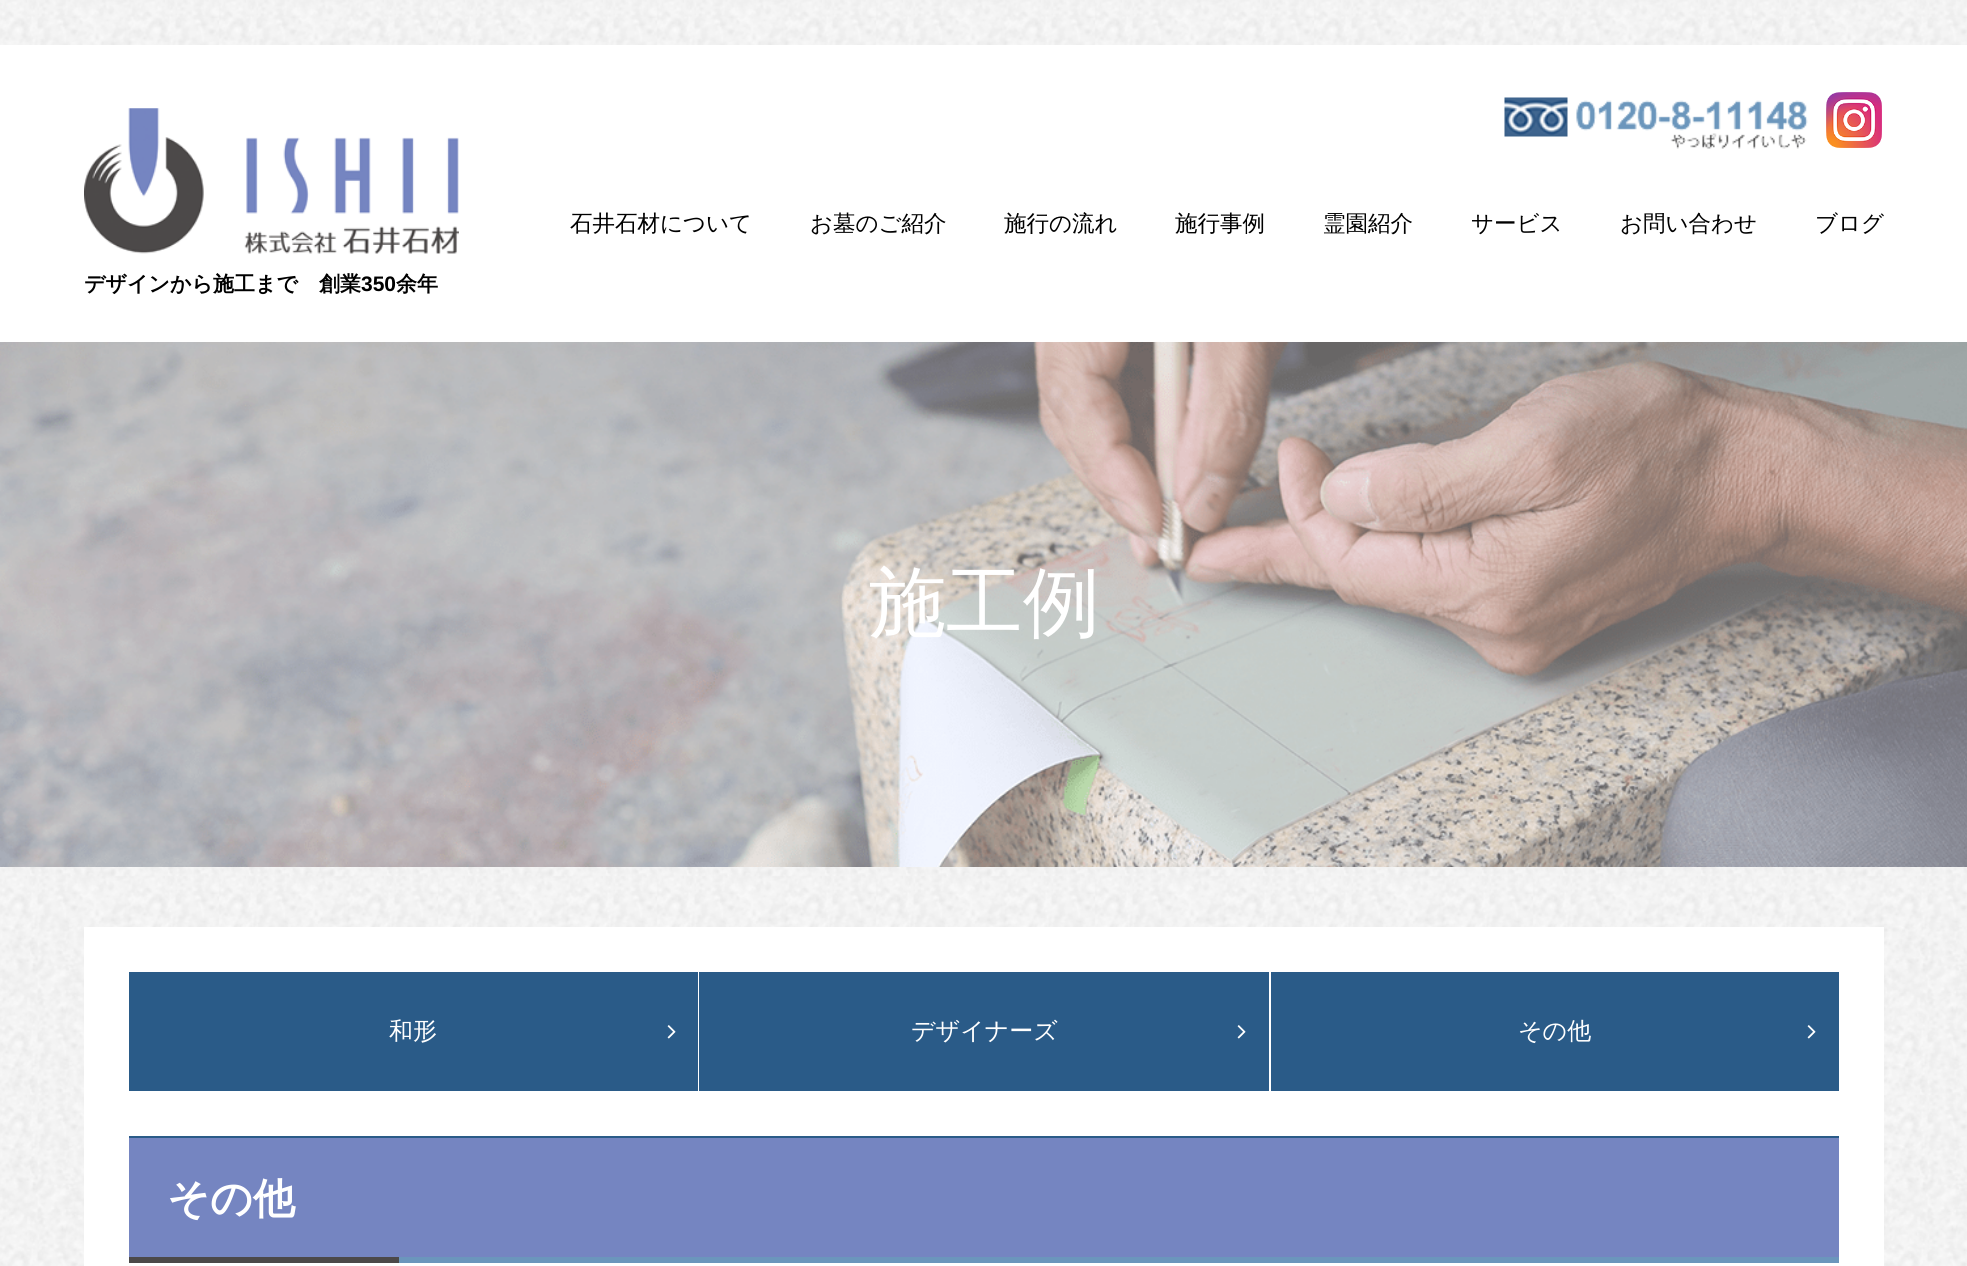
#include <cairo.h>
#include <math.h>
#include <stddef.h>

static cairo_t *ctx;

static void use_color(int r, int g, int b) {
    cairo_set_source_rgb(ctx, r / 255.0, g / 255.0, b / 255.0);
}

static void picture(const char *path, double x, double y, double w, double h) {
    cairo_surface_t *image = cairo_image_surface_create_from_png(path);
    cairo_save(ctx);
    cairo_set_source_surface(ctx, image, x, y);
    cairo_rectangle(ctx, x, y, w, h);
    cairo_fill(ctx);
    cairo_restore(ctx);
    cairo_surface_destroy(image);
}

int main(void) {
    cairo_surface_t *surface = cairo_image_surface_create(CAIRO_FORMAT_RGB24, 1967, 1266);
    ctx = cairo_create(surface);
    cairo_font_options_t *options = cairo_font_options_create();
    cairo_font_options_set_hint_metrics(options, CAIRO_HINT_METRICS_OFF);
    cairo_font_options_set_hint_style(options, CAIRO_HINT_STYLE_NONE);
    cairo_set_font_options(ctx, options);
    cairo_set_miter_limit(ctx, 4);
    use_color(255, 255, 255);
    cairo_paint(ctx);
    picture("img1.png", 0, 0, 1967, 1266);
    use_color(255, 255, 255);
    cairo_rectangle(ctx, 0, 45, 1967, 297);
    cairo_fill(ctx);
    picture("img2.png", 1504, 97, 304, 52);
    picture("img3.png", 1826, 92, 56, 56);
    cairo_select_font_face(ctx, "WenQuanYi Zen Hei Medium", CAIRO_FONT_SLANT_NORMAL, CAIRO_FONT_WEIGHT_NORMAL);
    cairo_set_font_size(ctx, 22.5);
    use_color(0, 0, 0);
    cairo_move_to(ctx, 570, 231);
    cairo_show_text(ctx, "石井石材について");
    cairo_move_to(ctx, 810, 231);
    cairo_show_text(ctx, "お墓のご紹介");
    cairo_move_to(ctx, 1004, 231);
    cairo_show_text(ctx, "施行の流れ");
    cairo_move_to(ctx, 1175, 231);
    cairo_show_text(ctx, "施行事例");
    cairo_move_to(ctx, 1323, 231);
    cairo_show_text(ctx, "霊園紹介");
    cairo_move_to(ctx, 1471, 231);
    cairo_show_text(ctx, "サービス");
    cairo_move_to(ctx, 1620, 231);
    cairo_show_text(ctx, "お問い合わせ");
    cairo_move_to(ctx, 1815, 231);
    cairo_show_text(ctx, "ブログ");
    picture("img4.png", 84, 108, 375, 146);
    cairo_select_font_face(ctx, "WenQuanYi Zen Hei", CAIRO_FONT_SLANT_NORMAL, CAIRO_FONT_WEIGHT_BOLD);
    cairo_set_font_size(ctx, 21);
    cairo_move_to(ctx, 84, 291);
    cairo_show_text(ctx, "デザインから施工まで　創業");
    cairo_select_font_face(ctx, "Liberation Sans", CAIRO_FONT_SLANT_NORMAL, CAIRO_FONT_WEIGHT_BOLD);
    cairo_move_to(ctx, 361, 291);
    cairo_show_text(ctx, "350");
    cairo_select_font_face(ctx, "WenQuanYi Zen Hei", CAIRO_FONT_SLANT_NORMAL, CAIRO_FONT_WEIGHT_BOLD);
    cairo_move_to(ctx, 396, 291);
    cairo_show_text(ctx, "余年");
    picture("img5.png", 0, 342, 1967, 525);
    cairo_select_font_face(ctx, "WenQuanYi Zen Hei Medium", CAIRO_FONT_SLANT_NORMAL, CAIRO_FONT_WEIGHT_NORMAL);
    cairo_set_font_size(ctx, 77);
    use_color(255, 255, 255);
    cairo_move_to(ctx, 869, 629);
    cairo_show_text(ctx, "施工例");
    cairo_rectangle(ctx, 84, 927, 1800, 339);
    cairo_fill(ctx);
    use_color(42, 91, 136);
    cairo_rectangle(ctx, 129, 972, 569, 119);
    cairo_fill(ctx);
    cairo_set_font_size(ctx, 24);
    use_color(255, 255, 255);
    cairo_move_to(ctx, 389, 1039);
    cairo_show_text(ctx, "和形");
    picture("img6.png", 667, 1025, 9, 14);
    use_color(42, 91, 136);
    cairo_rectangle(ctx, 699, 972, 570, 119);
    cairo_fill(ctx);
    use_color(255, 255, 255);
    cairo_move_to(ctx, 911, 1039);
    cairo_show_text(ctx, "デザイナーズ");
    picture("img6.png", 1237, 1025, 9, 14);
    use_color(42, 91, 136);
    cairo_rectangle(ctx, 1271, 972, 568, 119);
    cairo_fill(ctx);
    use_color(255, 255, 255);
    cairo_move_to(ctx, 1518, 1039);
    cairo_show_text(ctx, "その他");
    picture("img6.png", 1807, 1025, 9, 14);
    use_color(117, 133, 193);
    cairo_rectangle(ctx, 129, 1138, 1710, 119);
    cairo_fill(ctx);
    use_color(42, 91, 136);
    cairo_rectangle(ctx, 129, 1136, 1710, 2);
    cairo_fill(ctx);
    cairo_select_font_face(ctx, "WenQuanYi Zen Hei", CAIRO_FONT_SLANT_NORMAL, CAIRO_FONT_WEIGHT_BOLD);
    cairo_set_font_size(ctx, 42);
    use_color(255, 255, 255);
    cairo_move_to(ctx, 167, 1213);
    cairo_show_text(ctx, "その他");
    use_color(76, 73, 73);
    cairo_rectangle(ctx, 129, 1257, 270, 6);
    cairo_fill(ctx);
    use_color(107, 150, 188);
    cairo_rectangle(ctx, 399, 1257, 1440, 6);
    cairo_fill(ctx);
    cairo_surface_write_to_png(surface, "result.png");
    cairo_font_options_destroy(options);
    cairo_destroy(ctx);
    cairo_surface_destroy(surface);
    return 0;
}
